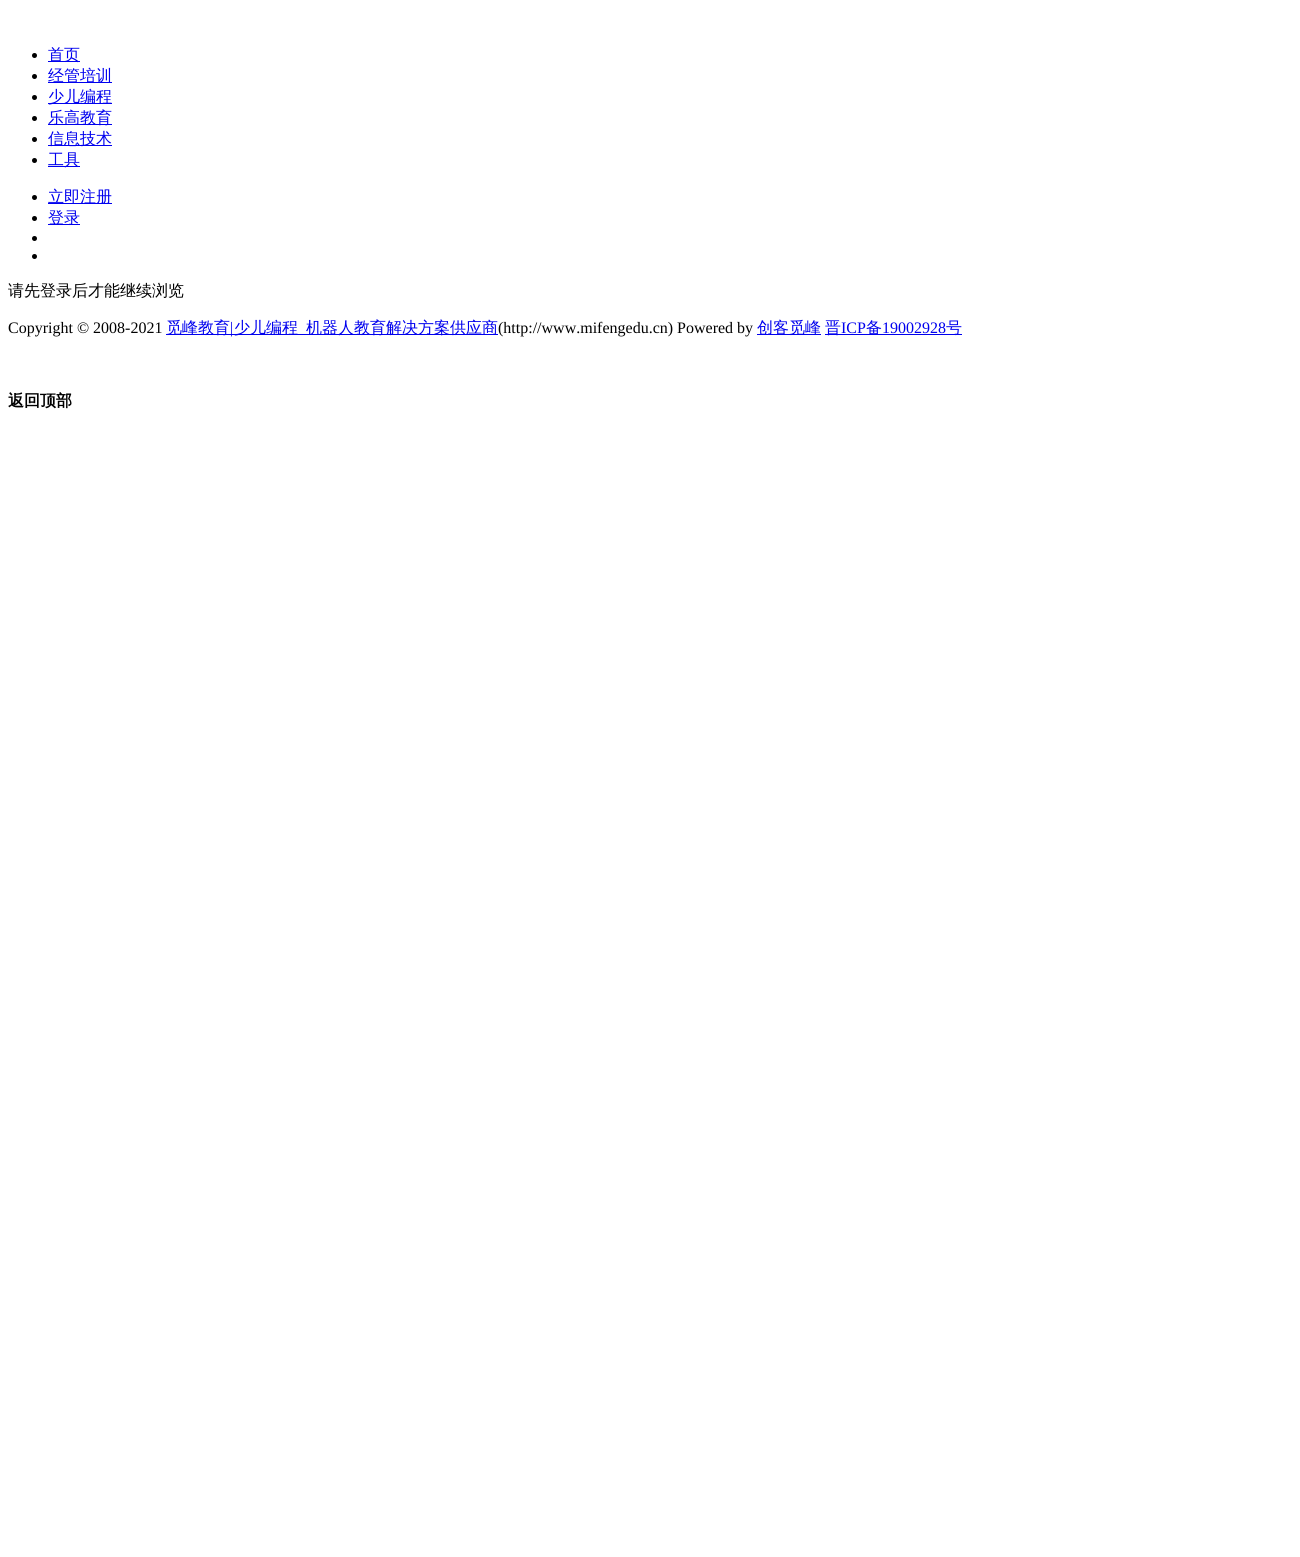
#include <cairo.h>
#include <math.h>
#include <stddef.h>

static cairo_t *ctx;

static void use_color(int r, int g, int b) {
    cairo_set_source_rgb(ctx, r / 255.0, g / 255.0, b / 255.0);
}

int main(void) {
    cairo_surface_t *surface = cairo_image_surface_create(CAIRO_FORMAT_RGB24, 1300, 1557);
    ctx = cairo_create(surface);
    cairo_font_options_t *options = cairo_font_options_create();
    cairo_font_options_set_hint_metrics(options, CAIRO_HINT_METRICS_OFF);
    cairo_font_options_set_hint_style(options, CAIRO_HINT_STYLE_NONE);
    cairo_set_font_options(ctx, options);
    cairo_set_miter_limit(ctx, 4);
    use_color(255, 255, 255);
    cairo_paint(ctx);
    use_color(0, 0, 0);
    cairo_arc(ctx, 34.5, 55.5, 2.5, 0, 2 * M_PI);
    cairo_fill(ctx);
    use_color(0, 0, 238);
    cairo_rectangle(ctx, 48, 61, 32, 1);
    cairo_fill(ctx);
    cairo_select_font_face(ctx, "WenQuanYi Zen Hei Medium", CAIRO_FONT_SLANT_NORMAL, CAIRO_FONT_WEIGHT_NORMAL);
    cairo_set_font_size(ctx, 16);
    cairo_move_to(ctx, 48, 60);
    cairo_show_text(ctx, "首页");
    use_color(0, 0, 0);
    cairo_new_path(ctx);
    cairo_arc(ctx, 34.5, 76.5, 2.5, 0, 2 * M_PI);
    cairo_fill(ctx);
    use_color(0, 0, 238);
    cairo_rectangle(ctx, 48, 82, 64, 1);
    cairo_fill(ctx);
    cairo_move_to(ctx, 48, 81);
    cairo_show_text(ctx, "经管培训");
    use_color(0, 0, 0);
    cairo_new_path(ctx);
    cairo_arc(ctx, 34.5, 97.5, 2.5, 0, 2 * M_PI);
    cairo_fill(ctx);
    use_color(0, 0, 238);
    cairo_rectangle(ctx, 48, 103, 64, 1);
    cairo_fill(ctx);
    cairo_move_to(ctx, 48, 102);
    cairo_show_text(ctx, "少儿编程");
    use_color(0, 0, 0);
    cairo_new_path(ctx);
    cairo_arc(ctx, 34.5, 118.5, 2.5, 0, 2 * M_PI);
    cairo_fill(ctx);
    use_color(0, 0, 238);
    cairo_rectangle(ctx, 48, 124, 64, 1);
    cairo_fill(ctx);
    cairo_move_to(ctx, 48, 123);
    cairo_show_text(ctx, "乐高教育");
    use_color(0, 0, 0);
    cairo_new_path(ctx);
    cairo_arc(ctx, 34.5, 139.5, 2.5, 0, 2 * M_PI);
    cairo_fill(ctx);
    use_color(0, 0, 238);
    cairo_rectangle(ctx, 48, 145, 64, 1);
    cairo_fill(ctx);
    cairo_move_to(ctx, 48, 144);
    cairo_show_text(ctx, "信息技术");
    use_color(0, 0, 0);
    cairo_new_path(ctx);
    cairo_arc(ctx, 34.5, 160.5, 2.5, 0, 2 * M_PI);
    cairo_fill(ctx);
    use_color(0, 0, 238);
    cairo_rectangle(ctx, 48, 166, 32, 1);
    cairo_fill(ctx);
    cairo_move_to(ctx, 48, 165);
    cairo_show_text(ctx, "工具");
    use_color(0, 0, 0);
    cairo_new_path(ctx);
    cairo_arc(ctx, 34.5, 197.5, 2.5, 0, 2 * M_PI);
    cairo_fill(ctx);
    use_color(0, 0, 238);
    cairo_rectangle(ctx, 48, 203, 64, 1);
    cairo_fill(ctx);
    cairo_move_to(ctx, 48, 202);
    cairo_show_text(ctx, "立即注册");
    use_color(0, 0, 0);
    cairo_new_path(ctx);
    cairo_arc(ctx, 34.5, 218.5, 2.5, 0, 2 * M_PI);
    cairo_fill(ctx);
    use_color(0, 0, 238);
    cairo_rectangle(ctx, 48, 224, 32, 1);
    cairo_fill(ctx);
    cairo_move_to(ctx, 48, 223);
    cairo_show_text(ctx, "登录");
    use_color(0, 0, 0);
    cairo_new_path(ctx);
    cairo_arc(ctx, 34.5, 238.5, 2.5, 0, 2 * M_PI);
    cairo_fill(ctx);
    cairo_arc(ctx, 34.5, 256.5, 2.5, 0, 2 * M_PI);
    cairo_fill(ctx);
    cairo_move_to(ctx, 8, 296);
    cairo_show_text(ctx, "请先登录后才能继续浏览");
    cairo_select_font_face(ctx, "Liberation Serif", CAIRO_FONT_SLANT_NORMAL, CAIRO_FONT_WEIGHT_NORMAL);
    cairo_move_to(ctx, 8, 333);
    cairo_show_text(ctx, "Copyright © 2008-2021");
    use_color(0, 0, 238);
    cairo_rectangle(ctx, 166, 334, 332, 1);
    cairo_fill(ctx);
    cairo_select_font_face(ctx, "WenQuanYi Zen Hei Medium", CAIRO_FONT_SLANT_NORMAL, CAIRO_FONT_WEIGHT_NORMAL);
    cairo_move_to(ctx, 166, 333);
    cairo_show_text(ctx, "觅峰教育");
    cairo_select_font_face(ctx, "Liberation Serif", CAIRO_FONT_SLANT_NORMAL, CAIRO_FONT_WEIGHT_NORMAL);
    cairo_move_to(ctx, 230, 333);
    cairo_show_text(ctx, "|");
    cairo_select_font_face(ctx, "WenQuanYi Zen Hei Medium", CAIRO_FONT_SLANT_NORMAL, CAIRO_FONT_WEIGHT_NORMAL);
    cairo_move_to(ctx, 234, 333);
    cairo_show_text(ctx, "少儿编程");
    cairo_move_to(ctx, 306, 333);
    cairo_show_text(ctx, "机器人教育解决方案供应商");
    cairo_select_font_face(ctx, "Liberation Serif", CAIRO_FONT_SLANT_NORMAL, CAIRO_FONT_WEIGHT_NORMAL);
    use_color(0, 0, 0);
    cairo_move_to(ctx, 498, 333);
    cairo_show_text(ctx, "(http://www.mifengedu.cn) Powered by");
    use_color(0, 0, 238);
    cairo_rectangle(ctx, 757, 334, 64, 1);
    cairo_fill(ctx);
    cairo_select_font_face(ctx, "WenQuanYi Zen Hei Medium", CAIRO_FONT_SLANT_NORMAL, CAIRO_FONT_WEIGHT_NORMAL);
    cairo_move_to(ctx, 757, 333);
    cairo_show_text(ctx, "创客觅峰");
    cairo_rectangle(ctx, 825, 334, 137, 1);
    cairo_fill(ctx);
    cairo_move_to(ctx, 825, 333);
    cairo_show_text(ctx, "晋");
    cairo_select_font_face(ctx, "Liberation Serif", CAIRO_FONT_SLANT_NORMAL, CAIRO_FONT_WEIGHT_NORMAL);
    cairo_move_to(ctx, 841, 333);
    cairo_show_text(ctx, "ICP");
    cairo_select_font_face(ctx, "WenQuanYi Zen Hei Medium", CAIRO_FONT_SLANT_NORMAL, CAIRO_FONT_WEIGHT_NORMAL);
    cairo_move_to(ctx, 866, 333);
    cairo_show_text(ctx, "备");
    cairo_select_font_face(ctx, "Liberation Serif", CAIRO_FONT_SLANT_NORMAL, CAIRO_FONT_WEIGHT_NORMAL);
    cairo_move_to(ctx, 882, 333);
    cairo_show_text(ctx, "19002928");
    cairo_select_font_face(ctx, "WenQuanYi Zen Hei Medium", CAIRO_FONT_SLANT_NORMAL, CAIRO_FONT_WEIGHT_NORMAL);
    cairo_move_to(ctx, 946, 333);
    cairo_show_text(ctx, "号");
    cairo_select_font_face(ctx, "WenQuanYi Zen Hei", CAIRO_FONT_SLANT_NORMAL, CAIRO_FONT_WEIGHT_BOLD);
    use_color(0, 0, 0);
    cairo_move_to(ctx, 8, 406);
    cairo_show_text(ctx, "返回顶部");
    cairo_surface_write_to_png(surface, "result.png");
    cairo_font_options_destroy(options);
    cairo_destroy(ctx);
    cairo_surface_destroy(surface);
    return 0;
}
